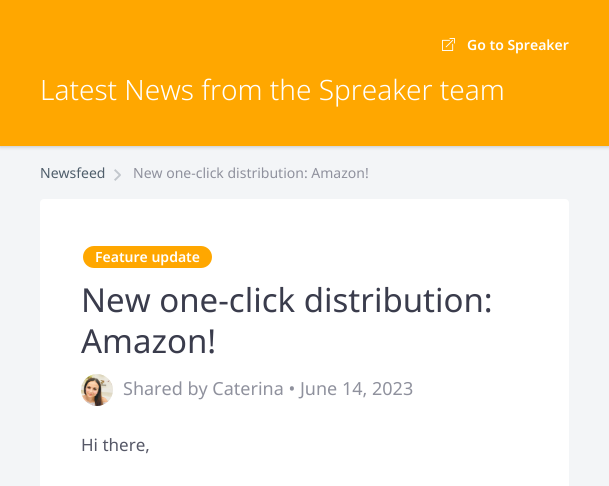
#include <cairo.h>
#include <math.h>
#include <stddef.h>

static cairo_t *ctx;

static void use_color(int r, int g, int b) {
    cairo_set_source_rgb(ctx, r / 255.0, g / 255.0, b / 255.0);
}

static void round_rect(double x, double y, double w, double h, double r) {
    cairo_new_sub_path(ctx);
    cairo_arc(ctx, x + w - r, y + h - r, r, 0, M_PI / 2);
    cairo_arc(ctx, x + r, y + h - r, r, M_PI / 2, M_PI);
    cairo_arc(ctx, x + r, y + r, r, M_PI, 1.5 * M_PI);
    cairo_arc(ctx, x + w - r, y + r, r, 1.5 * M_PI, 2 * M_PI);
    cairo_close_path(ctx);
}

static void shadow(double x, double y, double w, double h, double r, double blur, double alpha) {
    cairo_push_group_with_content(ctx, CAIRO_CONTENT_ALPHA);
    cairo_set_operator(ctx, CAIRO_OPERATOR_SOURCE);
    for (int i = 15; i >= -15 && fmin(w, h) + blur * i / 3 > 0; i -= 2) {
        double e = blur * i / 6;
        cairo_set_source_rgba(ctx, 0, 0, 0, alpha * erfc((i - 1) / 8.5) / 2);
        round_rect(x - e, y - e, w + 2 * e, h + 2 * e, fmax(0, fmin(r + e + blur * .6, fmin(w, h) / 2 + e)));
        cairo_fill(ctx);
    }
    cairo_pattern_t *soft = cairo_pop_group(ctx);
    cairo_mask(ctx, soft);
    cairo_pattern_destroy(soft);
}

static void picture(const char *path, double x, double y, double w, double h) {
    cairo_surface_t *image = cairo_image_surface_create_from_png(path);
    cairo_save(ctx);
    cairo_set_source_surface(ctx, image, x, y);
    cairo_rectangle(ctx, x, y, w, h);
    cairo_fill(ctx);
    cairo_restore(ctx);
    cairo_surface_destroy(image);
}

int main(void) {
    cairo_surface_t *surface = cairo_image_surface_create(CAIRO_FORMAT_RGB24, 609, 486);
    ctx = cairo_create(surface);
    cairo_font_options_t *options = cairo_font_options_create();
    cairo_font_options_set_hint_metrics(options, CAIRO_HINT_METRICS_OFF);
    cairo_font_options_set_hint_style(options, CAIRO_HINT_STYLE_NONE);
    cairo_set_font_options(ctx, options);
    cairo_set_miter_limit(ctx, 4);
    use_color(243, 245, 247);
    cairo_paint(ctx);
    use_color(0, 0, 0);
    shadow(0, 1, 609, 146, 0, 2, 0.2);
    use_color(255, 167, 0);
    cairo_rectangle(ctx, 0, 0, 609, 146);
    cairo_fill(ctx);
    picture("img1.png", 442, 38, 13, 13);
    cairo_select_font_face(ctx, "Noto Sans SemiBold", CAIRO_FONT_SLANT_NORMAL, CAIRO_FONT_WEIGHT_NORMAL);
    cairo_set_font_size(ctx, 14);
    use_color(255, 255, 255);
    cairo_move_to(ctx, 467, 50);
    cairo_show_text(ctx, "Go to Spreaker");
    cairo_select_font_face(ctx, "Noto Sans Light", CAIRO_FONT_SLANT_NORMAL, CAIRO_FONT_WEIGHT_NORMAL);
    cairo_set_font_size(ctx, 28);
    cairo_move_to(ctx, 40, 100);
    cairo_show_text(ctx, "Latest News from the Spreaker team");
    cairo_select_font_face(ctx, "Noto Sans", CAIRO_FONT_SLANT_NORMAL, CAIRO_FONT_WEIGHT_NORMAL);
    cairo_set_font_size(ctx, 14);
    use_color(79, 94, 107);
    cairo_move_to(ctx, 40, 178);
    cairo_show_text(ctx, "Newsfeed");
    picture("img2.png", 114, 169, 7, 12);
    use_color(143, 145, 157);
    cairo_move_to(ctx, 133, 178);
    cairo_show_text(ctx, "New one-click distribution: Amazon!");
    use_color(255, 255, 255);
    round_rect(40, 199, 529, 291, 4);
    cairo_fill(ctx);
    use_color(255, 167, 0);
    round_rect(82, 245, 131, 24, 12);
    cairo_fill_preserve(ctx);
    use_color(255, 255, 255);
    cairo_stroke(ctx);
    cairo_select_font_face(ctx, "Noto Sans SemiBold", CAIRO_FONT_SLANT_NORMAL, CAIRO_FONT_WEIGHT_NORMAL);
    cairo_move_to(ctx, 95, 262);
    cairo_show_text(ctx, "Feature update");
    cairo_select_font_face(ctx, "Noto Sans", CAIRO_FONT_SLANT_NORMAL, CAIRO_FONT_WEIGHT_NORMAL);
    cairo_set_font_size(ctx, 33);
    use_color(58, 60, 76);
    cairo_move_to(ctx, 81, 312);
    cairo_show_text(ctx, "New one-click distribution:");
    cairo_move_to(ctx, 81, 353);
    cairo_show_text(ctx, "Amazon!");
    picture("img3.png", 81, 374, 32, 32);
    cairo_set_font_size(ctx, 18);
    use_color(143, 145, 157);
    cairo_move_to(ctx, 123, 395);
    cairo_show_text(ctx, "Shared by Caterina • June 14, 2023");
    cairo_set_font_size(ctx, 17);
    use_color(86, 88, 103);
    cairo_move_to(ctx, 81, 451);
    cairo_show_text(ctx, "Hi there,");
    cairo_surface_write_to_png(surface, "result.png");
    cairo_font_options_destroy(options);
    cairo_destroy(ctx);
    cairo_surface_destroy(surface);
    return 0;
}
